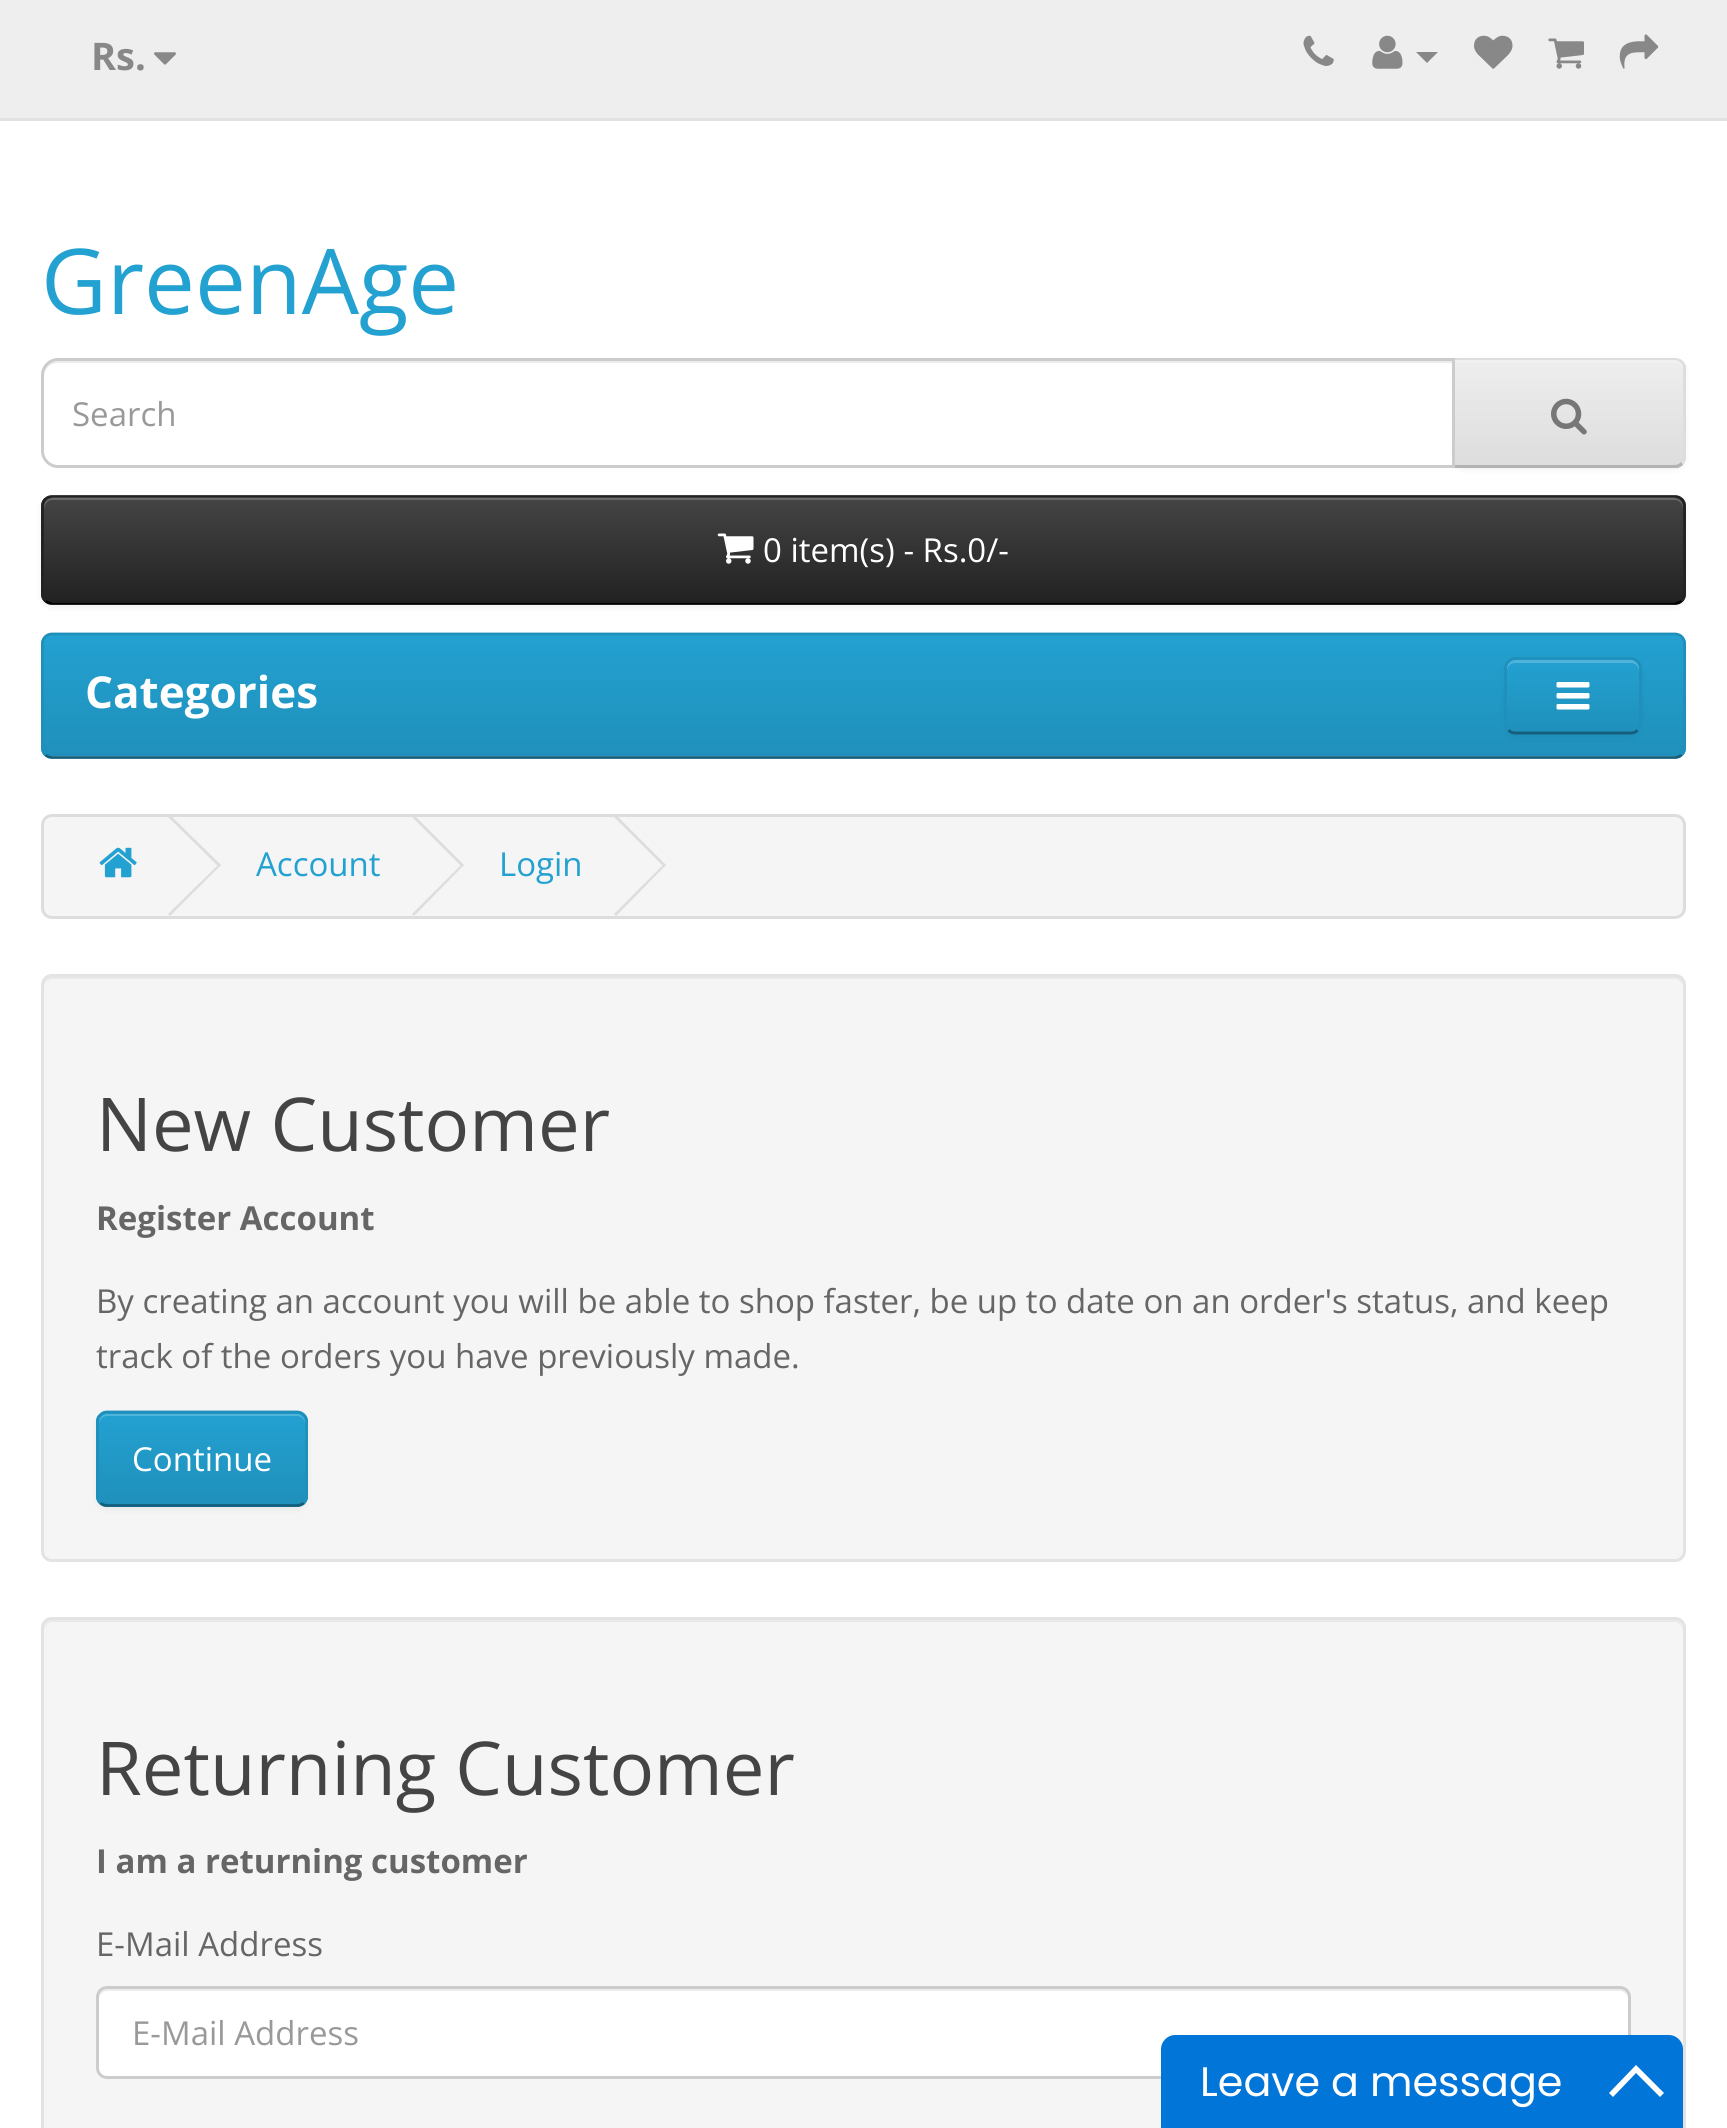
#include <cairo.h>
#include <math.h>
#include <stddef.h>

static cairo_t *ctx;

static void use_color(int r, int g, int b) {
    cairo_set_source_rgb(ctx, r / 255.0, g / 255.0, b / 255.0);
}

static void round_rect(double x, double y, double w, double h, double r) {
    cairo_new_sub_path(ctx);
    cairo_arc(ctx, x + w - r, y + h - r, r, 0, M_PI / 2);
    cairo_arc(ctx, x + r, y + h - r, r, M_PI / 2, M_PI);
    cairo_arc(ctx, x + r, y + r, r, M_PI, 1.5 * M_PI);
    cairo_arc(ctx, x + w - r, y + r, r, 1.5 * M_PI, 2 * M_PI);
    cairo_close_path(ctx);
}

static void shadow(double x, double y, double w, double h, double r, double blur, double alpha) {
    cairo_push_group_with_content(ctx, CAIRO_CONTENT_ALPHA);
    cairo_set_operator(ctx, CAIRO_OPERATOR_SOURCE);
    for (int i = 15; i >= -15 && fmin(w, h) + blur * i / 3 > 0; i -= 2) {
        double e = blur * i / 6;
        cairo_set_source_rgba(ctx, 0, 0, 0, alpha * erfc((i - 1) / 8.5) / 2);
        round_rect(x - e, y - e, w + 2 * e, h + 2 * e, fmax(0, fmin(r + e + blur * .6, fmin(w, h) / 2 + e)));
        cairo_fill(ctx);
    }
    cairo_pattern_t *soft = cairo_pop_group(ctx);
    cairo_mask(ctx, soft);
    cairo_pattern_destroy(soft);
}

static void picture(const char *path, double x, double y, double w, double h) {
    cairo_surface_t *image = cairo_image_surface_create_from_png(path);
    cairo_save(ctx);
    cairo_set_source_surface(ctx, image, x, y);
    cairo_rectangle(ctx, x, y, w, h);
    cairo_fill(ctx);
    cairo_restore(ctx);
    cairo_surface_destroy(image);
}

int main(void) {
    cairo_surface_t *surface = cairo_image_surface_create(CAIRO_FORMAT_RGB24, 1727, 2128);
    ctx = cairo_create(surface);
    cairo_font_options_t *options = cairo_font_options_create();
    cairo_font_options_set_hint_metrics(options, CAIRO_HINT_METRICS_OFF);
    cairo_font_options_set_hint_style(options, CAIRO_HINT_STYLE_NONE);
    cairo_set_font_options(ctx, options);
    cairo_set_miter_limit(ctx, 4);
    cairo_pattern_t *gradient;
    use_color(255, 255, 255);
    cairo_paint(ctx);
    use_color(238, 238, 238);
    cairo_rectangle(ctx, 0, 0, 1727, 118);
    cairo_fill(ctx);
    use_color(226, 226, 226);
    cairo_rectangle(ctx, 0, 118, 1727, 3);
    cairo_fill(ctx);
    cairo_select_font_face(ctx, "Open Sans", CAIRO_FONT_SLANT_NORMAL, CAIRO_FONT_WEIGHT_BOLD);
    cairo_set_font_size(ctx, 38);
    use_color(136, 136, 136);
    cairo_move_to(ctx, 91, 70);
    cairo_show_text(ctx, "Rs.");
    picture("img1.png", 154, 52, 22, 13);
    picture("img2.png", 1303, 35, 31, 31);
    picture("img3.png", 1372, 35, 31, 34);
    cairo_new_path(ctx);
    cairo_move_to(ctx, 1416, 52);
    cairo_line_to(ctx, 1438, 52);
    cairo_line_to(ctx, 1427, 63);
    cairo_close_path(ctx);
    cairo_fill(ctx);
    picture("img4.png", 1474, 35, 39, 34);
    picture("img5.png", 1548, 38, 36, 31);
    picture("img6.png", 1619, 34, 40, 35);
    cairo_select_font_face(ctx, "Open Sans", CAIRO_FONT_SLANT_NORMAL, CAIRO_FONT_WEIGHT_NORMAL);
    cairo_set_font_size(ctx, 90.75);
    use_color(35, 161, 209);
    cairo_move_to(ctx, 41, 314);
    cairo_show_text(ctx, "GreenAge");
    use_color(0, 0, 0);
    shadow(1452, 360, 234, 110, 11, 3, 0.05);
    cairo_save(ctx);
    cairo_new_path(ctx);
    cairo_move_to(ctx, 1452, 358);
    cairo_line_to(ctx, 1675, 358);
    cairo_curve_to(ctx, 1681, 358, 1686, 363, 1686, 369);
    cairo_line_to(ctx, 1686, 457);
    cairo_curve_to(ctx, 1686, 463, 1681, 468, 1675, 468);
    cairo_line_to(ctx, 1452, 468);
    cairo_close_path(ctx);
    cairo_clip(ctx);
    gradient = cairo_pattern_create_linear(1569, 360, 1569, 465);
    cairo_pattern_add_color_stop_rgba(gradient, 0, 0.933, 0.933, 0.933, 1);
    cairo_pattern_add_color_stop_rgba(gradient, 1, 0.867, 0.867, 0.867, 1);
    cairo_set_source(ctx, gradient);
    cairo_pattern_destroy(gradient);
    cairo_rectangle(ctx, 1455, 360, 231, 105);
    cairo_fill(ctx);
    cairo_restore(ctx);
    use_color(241, 241, 241);
    cairo_new_path(ctx);
    cairo_move_to(ctx, 1455, 363);
    cairo_line_to(ctx, 1675, 363);
    cairo_curve_to(ctx, 1679, 363, 1683, 367, 1683, 371);
    cairo_line_to(ctx, 1683, 368);
    cairo_curve_to(ctx, 1683, 364, 1679, 360, 1675, 360);
    cairo_line_to(ctx, 1455, 360);
    cairo_close_path(ctx);
    cairo_fill(ctx);
    use_color(221, 221, 221);
    cairo_new_path(ctx);
    cairo_move_to(ctx, 1455, 360);
    cairo_line_to(ctx, 1675, 360);
    cairo_curve_to(ctx, 1677, 360, 1679, 361, 1681, 363);
    cairo_line_to(ctx, 1683, 361);
    cairo_curve_to(ctx, 1681, 359, 1678, 358, 1675, 358);
    cairo_line_to(ctx, 1452, 358);
    cairo_close_path(ctx);
    cairo_fill(ctx);
    cairo_new_path(ctx);
    cairo_move_to(ctx, 1683, 361);
    cairo_curve_to(ctx, 1684, 362, 1685, 364, 1686, 366);
    cairo_line_to(ctx, 1686, 459);
    cairo_curve_to(ctx, 1685, 461, 1684, 463, 1683, 465);
    cairo_line_to(ctx, 1681, 462);
    cairo_curve_to(ctx, 1682, 461, 1683, 458, 1683, 456);
    cairo_line_to(ctx, 1683, 368);
    cairo_curve_to(ctx, 1683, 366, 1682, 364, 1681, 363);
    cairo_close_path(ctx);
    cairo_fill(ctx);
    use_color(179, 179, 179);
    cairo_new_path(ctx);
    cairo_move_to(ctx, 1678, 468);
    cairo_line_to(ctx, 1452, 468);
    cairo_line_to(ctx, 1455, 464);
    cairo_line_to(ctx, 1455, 465);
    cairo_line_to(ctx, 1675, 465);
    cairo_curve_to(ctx, 1677, 465, 1679, 464, 1681, 462);
    cairo_line_to(ctx, 1683, 465);
    cairo_curve_to(ctx, 1682, 466, 1680, 467, 1678, 468);
    cairo_close_path(ctx);
    cairo_fill(ctx);
    use_color(255, 255, 255);
    cairo_new_path(ctx);
    cairo_move_to(ctx, 58, 358);
    cairo_line_to(ctx, 1455, 358);
    cairo_line_to(ctx, 1455, 468);
    cairo_line_to(ctx, 58, 468);
    cairo_curve_to(ctx, 48.5, 468, 41, 460.5, 41, 451);
    cairo_line_to(ctx, 41, 375);
    cairo_curve_to(ctx, 41, 365.5, 48.5, 358, 58, 358);
    cairo_close_path(ctx);
    cairo_fill(ctx);
    use_color(236, 236, 236);
    cairo_new_path(ctx);
    cairo_move_to(ctx, 58, 363);
    cairo_line_to(ctx, 1452, 363);
    cairo_line_to(ctx, 1452, 360);
    cairo_line_to(ctx, 58, 360);
    cairo_curve_to(ctx, 50, 360, 44, 366, 44, 374);
    cairo_line_to(ctx, 44, 377);
    cairo_curve_to(ctx, 44, 369, 50, 363, 58, 363);
    cairo_close_path(ctx);
    cairo_fill(ctx);
    cairo_new_path(ctx);
    cairo_move_to(ctx, 58, 359.5);
    cairo_line_to(ctx, 1453.5, 359.5);
    cairo_line_to(ctx, 1453.5, 466.5);
    cairo_line_to(ctx, 58, 466.5);
    cairo_curve_to(ctx, 49.5, 466.5, 42.5, 459.5, 42.5, 451);
    cairo_line_to(ctx, 42.5, 375);
    cairo_curve_to(ctx, 42.5, 366.5, 49.5, 359.5, 58, 359.5);
    cairo_close_path(ctx);
    use_color(204, 204, 204);
    cairo_set_line_width(ctx, 3);
    cairo_stroke(ctx);
    cairo_set_font_size(ctx, 33);
    use_color(153, 153, 153);
    cairo_move_to(ctx, 72, 426);
    cairo_show_text(ctx, "Search");
    picture("img7.png", 1551, 398, 36, 37);
    use_color(0, 0, 0);
    shadow(41, 498, 1645, 110, 11, 3, 0.05);
    cairo_save(ctx);
    round_rect(41, 495, 1645, 110, 11);
    cairo_clip(ctx);
    gradient = cairo_pattern_create_linear(864, 498, 864, 602);
    cairo_pattern_add_color_stop_rgba(gradient, 0, 0.267, 0.267, 0.267, 1);
    cairo_pattern_add_color_stop_rgba(gradient, 1, 0.133, 0.133, 0.133, 1);
    cairo_set_source(ctx, gradient);
    cairo_pattern_destroy(gradient);
    cairo_rectangle(ctx, 41, 498, 1645, 104);
    cairo_fill(ctx);
    cairo_restore(ctx);
    use_color(105, 105, 105);
    cairo_new_path(ctx);
    cairo_move_to(ctx, 52, 500);
    cairo_line_to(ctx, 1675, 500);
    cairo_curve_to(ctx, 1679, 500, 1683, 504, 1683, 509);
    cairo_line_to(ctx, 1683, 506);
    cairo_curve_to(ctx, 1683, 502, 1679, 498, 1675, 498);
    cairo_line_to(ctx, 52, 498);
    cairo_curve_to(ctx, 48, 498, 44, 502, 44, 506);
    cairo_line_to(ctx, 44, 509);
    cairo_curve_to(ctx, 44, 504, 48, 500, 52, 500);
    cairo_close_path(ctx);
    cairo_fill(ctx);
    cairo_new_path(ctx);
    cairo_move_to(ctx, 1681.5, 601);
    cairo_curve_to(ctx, 1680, 602.5, 1677.5, 603.5, 1675, 603.5);
    cairo_line_to(ctx, 52, 603.5);
    cairo_curve_to(ctx, 49.5, 603.5, 47, 602.5, 45.5, 601);
    use_color(0, 0, 0);
    cairo_set_line_width(ctx, 2.8);
    cairo_stroke(ctx);
    cairo_new_path(ctx);
    cairo_move_to(ctx, 45.5, 601);
    cairo_curve_to(ctx, 43.5, 599, 42.5, 596.5, 42.5, 594);
    cairo_line_to(ctx, 42.5, 506);
    cairo_curve_to(ctx, 42.5, 503.5, 43.5, 501, 45.5, 499);
    cairo_curve_to(ctx, 47, 497.5, 49.5, 496.5, 52, 496.5);
    cairo_line_to(ctx, 1675, 496.5);
    cairo_curve_to(ctx, 1677.5, 496.5, 1680, 497.5, 1681.5, 499);
    cairo_curve_to(ctx, 1683.5, 501, 1684.5, 503.5, 1684.5, 506);
    cairo_line_to(ctx, 1684.5, 594);
    cairo_curve_to(ctx, 1684.5, 596.5, 1683.5, 599, 1681.5, 601);
    use_color(34, 34, 34);
    cairo_stroke(ctx);
    picture("img8.png", 717, 533, 37, 31);
    use_color(255, 255, 255);
    cairo_move_to(ctx, 763, 562);
    cairo_show_text(ctx, "0 item(s) - Rs.0/-");
    cairo_save(ctx);
    round_rect(41, 633, 1645, 126, 11);
    cairo_clip(ctx);
    gradient = cairo_pattern_create_linear(864, 635, 864, 756);
    cairo_pattern_add_color_stop_rgba(gradient, 0, 0.137, 0.631, 0.82, 1);
    cairo_pattern_add_color_stop_rgba(gradient, 1, 0.122, 0.565, 0.733, 1);
    cairo_set_source(ctx, gradient);
    cairo_pattern_destroy(gradient);
    cairo_rectangle(ctx, 41, 635, 1645, 121);
    cairo_fill(ctx);
    cairo_restore(ctx);
    cairo_new_path(ctx);
    cairo_move_to(ctx, 1681.5, 755);
    cairo_curve_to(ctx, 1680, 756.5, 1677.5, 757.5, 1675, 757.5);
    cairo_line_to(ctx, 52, 757.5);
    cairo_curve_to(ctx, 49.5, 757.5, 47, 756.5, 45.5, 755);
    use_color(20, 94, 122);
    cairo_stroke(ctx);
    cairo_new_path(ctx);
    cairo_move_to(ctx, 45.5, 755);
    cairo_curve_to(ctx, 43.5, 753, 42.5, 750.5, 42.5, 748);
    cairo_line_to(ctx, 42.5, 643.5);
    cairo_curve_to(ctx, 42.5, 641, 43.5, 638.5, 45.5, 636.5);
    cairo_curve_to(ctx, 47, 635, 49.5, 634, 52, 634);
    cairo_line_to(ctx, 1675, 634);
    cairo_curve_to(ctx, 1677.5, 634, 1680, 635, 1681.5, 636.5);
    cairo_curve_to(ctx, 1683.5, 638.5, 1684.5, 641, 1684.5, 643.5);
    cairo_line_to(ctx, 1684.5, 748);
    cairo_curve_to(ctx, 1684.5, 750.5, 1683.5, 753, 1681.5, 755);
    use_color(31, 144, 187);
    cairo_stroke(ctx);
    cairo_select_font_face(ctx, "Open Sans", CAIRO_FONT_SLANT_NORMAL, CAIRO_FONT_WEIGHT_BOLD);
    cairo_set_font_size(ctx, 44);
    use_color(255, 255, 255);
    cairo_move_to(ctx, 85, 708);
    cairo_show_text(ctx, "Categories");
    use_color(0, 0, 0);
    shadow(1504, 660, 138, 77, 11, 3, 0.05);
    use_color(34, 154, 200);
    round_rect(1504, 657, 138, 77, 11);
    cairo_fill(ctx);
    cairo_save(ctx);
    round_rect(1504, 657, 138, 77, 11);
    cairo_clip(ctx);
    gradient = cairo_pattern_create_linear(1573, 660, 1573, 732);
    cairo_pattern_add_color_stop_rgba(gradient, 0, 0.137, 0.631, 0.82, 1);
    cairo_pattern_add_color_stop_rgba(gradient, 1, 0.122, 0.565, 0.733, 1);
    cairo_set_source(ctx, gradient);
    cairo_pattern_destroy(gradient);
    cairo_rectangle(ctx, 1504, 660, 138, 72);
    cairo_fill(ctx);
    cairo_restore(ctx);
    use_color(79, 179, 218);
    cairo_new_path(ctx);
    cairo_move_to(ctx, 1515, 663);
    cairo_line_to(ctx, 1631, 663);
    cairo_curve_to(ctx, 1635, 663, 1639, 666, 1639, 671);
    cairo_line_to(ctx, 1639, 668);
    cairo_curve_to(ctx, 1639, 664, 1635, 660, 1631, 660);
    cairo_line_to(ctx, 1515, 660);
    cairo_curve_to(ctx, 1511, 660, 1507, 664, 1507, 668);
    cairo_line_to(ctx, 1507, 671);
    cairo_curve_to(ctx, 1507, 666, 1511, 663, 1515, 663);
    cairo_close_path(ctx);
    cairo_fill(ctx);
    cairo_new_path(ctx);
    cairo_move_to(ctx, 1637.5, 730);
    cairo_curve_to(ctx, 1636, 732, 1633.5, 733, 1631, 733);
    cairo_line_to(ctx, 1515, 733);
    cairo_curve_to(ctx, 1512.5, 733, 1510, 732, 1508.5, 730);
    use_color(20, 94, 122);
    cairo_stroke(ctx);
    cairo_new_path(ctx);
    cairo_move_to(ctx, 1508.5, 730);
    cairo_curve_to(ctx, 1506.5, 728.5, 1505.5, 726, 1505.5, 723);
    cairo_line_to(ctx, 1505.5, 668);
    cairo_curve_to(ctx, 1505.5, 665.5, 1506.5, 663, 1508.5, 661.5);
    cairo_curve_to(ctx, 1510, 659.5, 1512.5, 658.5, 1515, 658.5);
    cairo_line_to(ctx, 1631, 658.5);
    cairo_curve_to(ctx, 1633.5, 658.5, 1636, 659.5, 1637.5, 661.5);
    cairo_curve_to(ctx, 1639.5, 663, 1640.5, 665.5, 1640.5, 668);
    cairo_line_to(ctx, 1640.5, 723);
    cairo_curve_to(ctx, 1640.5, 726, 1639.5, 728.5, 1637.5, 730);
    use_color(31, 144, 187);
    cairo_stroke(ctx);
    picture("img9.png", 1556, 682, 34, 28);
    use_color(245, 245, 245);
    round_rect(42.5, 815.5, 1642, 102, 9.5);
    cairo_fill_preserve(ctx);
    use_color(221, 221, 221);
    cairo_set_line_width(ctx, 3);
    cairo_stroke(ctx);
    picture("img10.png", 99, 847, 38, 31);
    cairo_new_path(ctx);
    cairo_move_to(ctx, 168, 817);
    cairo_line_to(ctx, 170, 815);
    cairo_line_to(ctx, 221, 865);
    cairo_line_to(ctx, 219, 867);
    cairo_close_path(ctx);
    cairo_fill(ctx);
    cairo_new_path(ctx);
    cairo_move_to(ctx, 168, 914);
    cairo_line_to(ctx, 219, 864);
    cairo_line_to(ctx, 221, 865);
    cairo_line_to(ctx, 170, 916);
    cairo_close_path(ctx);
    cairo_fill(ctx);
    cairo_select_font_face(ctx, "Open Sans", CAIRO_FONT_SLANT_NORMAL, CAIRO_FONT_WEIGHT_NORMAL);
    cairo_set_font_size(ctx, 33);
    use_color(35, 161, 209);
    cairo_move_to(ctx, 256, 876);
    cairo_show_text(ctx, "Account");
    use_color(221, 221, 221);
    cairo_new_path(ctx);
    cairo_move_to(ctx, 412, 817);
    cairo_line_to(ctx, 414, 815);
    cairo_line_to(ctx, 464, 865);
    cairo_line_to(ctx, 462, 867);
    cairo_close_path(ctx);
    cairo_fill(ctx);
    cairo_new_path(ctx);
    cairo_move_to(ctx, 412, 914);
    cairo_line_to(ctx, 462, 864);
    cairo_line_to(ctx, 464, 865);
    cairo_line_to(ctx, 414, 916);
    cairo_close_path(ctx);
    cairo_fill(ctx);
    use_color(35, 161, 209);
    cairo_move_to(ctx, 499, 876);
    cairo_show_text(ctx, "Login");
    use_color(221, 221, 221);
    cairo_new_path(ctx);
    cairo_move_to(ctx, 614, 817);
    cairo_line_to(ctx, 616, 815);
    cairo_line_to(ctx, 666, 865);
    cairo_line_to(ctx, 664, 867);
    cairo_close_path(ctx);
    cairo_fill(ctx);
    cairo_new_path(ctx);
    cairo_move_to(ctx, 614, 914);
    cairo_line_to(ctx, 664, 864);
    cairo_line_to(ctx, 666, 865);
    cairo_line_to(ctx, 616, 916);
    cairo_close_path(ctx);
    cairo_fill(ctx);
    use_color(245, 245, 245);
    round_rect(41, 974, 1645, 588, 11);
    cairo_fill(ctx);
    use_color(233, 233, 233);
    cairo_new_path(ctx);
    cairo_move_to(ctx, 52, 979);
    cairo_line_to(ctx, 1675, 979);
    cairo_curve_to(ctx, 1679, 979, 1683, 983, 1683, 987);
    cairo_line_to(ctx, 1683, 984);
    cairo_curve_to(ctx, 1683, 980, 1679, 976, 1675, 976);
    cairo_line_to(ctx, 52, 976);
    cairo_curve_to(ctx, 48, 976, 44, 980, 44, 984);
    cairo_line_to(ctx, 44, 987);
    cairo_curve_to(ctx, 44, 983, 48, 979, 52, 979);
    cairo_close_path(ctx);
    cairo_fill(ctx);
    round_rect(42.5, 975.5, 1642, 585, 9.5);
    use_color(227, 227, 227);
    cairo_stroke(ctx);
    cairo_set_font_size(ctx, 74.25);
    use_color(68, 68, 68);
    cairo_move_to(ctx, 96, 1151);
    cairo_show_text(ctx, "New Customer");
    cairo_select_font_face(ctx, "Open Sans", CAIRO_FONT_SLANT_NORMAL, CAIRO_FONT_WEIGHT_BOLD);
    cairo_set_font_size(ctx, 33);
    use_color(102, 102, 102);
    cairo_move_to(ctx, 96, 1230);
    cairo_show_text(ctx, "Register Account");
    cairo_select_font_face(ctx, "Open Sans", CAIRO_FONT_SLANT_NORMAL, CAIRO_FONT_WEIGHT_NORMAL);
    cairo_move_to(ctx, 96, 1313);
    cairo_show_text(ctx, "By creating an account you will be able to shop faster, be up to date on an order's status, and keep");
    cairo_move_to(ctx, 96, 1368);
    cairo_show_text(ctx, "track of the orders you have previously made.");
    use_color(0, 0, 0);
    shadow(96, 1414, 212, 96, 11, 3, 0.05);
    use_color(34, 154, 200);
    round_rect(96, 1411, 212, 96, 11);
    cairo_fill(ctx);
    cairo_save(ctx);
    round_rect(96, 1411, 212, 96, 11);
    cairo_clip(ctx);
    gradient = cairo_pattern_create_linear(202, 1414, 202, 1504);
    cairo_pattern_add_color_stop_rgba(gradient, 0, 0.137, 0.631, 0.82, 1);
    cairo_pattern_add_color_stop_rgba(gradient, 1, 0.122, 0.565, 0.733, 1);
    cairo_set_source(ctx, gradient);
    cairo_pattern_destroy(gradient);
    cairo_rectangle(ctx, 96, 1414, 212, 90);
    cairo_fill(ctx);
    cairo_restore(ctx);
    use_color(79, 180, 218);
    cairo_new_path(ctx);
    cairo_move_to(ctx, 107, 1416);
    cairo_line_to(ctx, 297, 1416);
    cairo_curve_to(ctx, 302, 1416, 305, 1420, 305, 1424);
    cairo_line_to(ctx, 305, 1422);
    cairo_curve_to(ctx, 305, 1418, 301, 1414, 297, 1414);
    cairo_line_to(ctx, 107, 1414);
    cairo_curve_to(ctx, 103, 1414, 99, 1418, 99, 1422);
    cairo_line_to(ctx, 99, 1424);
    cairo_curve_to(ctx, 99, 1420, 103, 1416, 107, 1416);
    cairo_close_path(ctx);
    cairo_fill(ctx);
    cairo_new_path(ctx);
    cairo_move_to(ctx, 304, 1503);
    cairo_curve_to(ctx, 302, 1504.5, 299.5, 1505.5, 297, 1505.5);
    cairo_line_to(ctx, 107, 1505.5);
    cairo_curve_to(ctx, 104.5, 1505.5, 102, 1504.5, 100.5, 1503);
    use_color(20, 94, 122);
    cairo_set_line_width(ctx, 2.8);
    cairo_stroke(ctx);
    cairo_new_path(ctx);
    cairo_move_to(ctx, 100.5, 1503);
    cairo_curve_to(ctx, 98.5, 1501, 97.5, 1498.5, 97.5, 1496);
    cairo_line_to(ctx, 97.5, 1422);
    cairo_curve_to(ctx, 97.5, 1419, 98.5, 1416.5, 100.5, 1415);
    cairo_curve_to(ctx, 102, 1413, 104.5, 1412, 107, 1412);
    cairo_line_to(ctx, 297, 1412);
    cairo_curve_to(ctx, 299.5, 1412, 302, 1413, 304, 1415);
    cairo_curve_to(ctx, 305.5, 1416.5, 306.5, 1419, 306.5, 1422);
    cairo_line_to(ctx, 306.5, 1496);
    cairo_curve_to(ctx, 306.5, 1498.5, 305.5, 1501, 304, 1503);
    use_color(31, 144, 187);
    cairo_stroke(ctx);
    use_color(255, 255, 255);
    cairo_move_to(ctx, 132, 1471);
    cairo_show_text(ctx, "Continue");
    use_color(245, 245, 245);
    round_rect(41, 1617, 1645, 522, 11);
    cairo_fill(ctx);
    use_color(233, 233, 233);
    cairo_new_path(ctx);
    cairo_move_to(ctx, 52, 1622);
    cairo_line_to(ctx, 1675, 1622);
    cairo_curve_to(ctx, 1679, 1622, 1683, 1626, 1683, 1631);
    cairo_line_to(ctx, 1683, 1628);
    cairo_curve_to(ctx, 1683, 1624, 1679, 1620, 1675, 1620);
    cairo_line_to(ctx, 52, 1620);
    cairo_curve_to(ctx, 48, 1620, 44, 1624, 44, 1628);
    cairo_line_to(ctx, 44, 1631);
    cairo_curve_to(ctx, 44, 1626, 48, 1622, 52, 1622);
    cairo_close_path(ctx);
    cairo_fill(ctx);
    round_rect(42.5, 1618.5, 1642, 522, 9.5);
    use_color(227, 227, 227);
    cairo_set_line_width(ctx, 3);
    cairo_stroke(ctx);
    cairo_set_font_size(ctx, 74.25);
    use_color(68, 68, 68);
    cairo_move_to(ctx, 96, 1795);
    cairo_show_text(ctx, "Returning Customer");
    cairo_select_font_face(ctx, "Open Sans", CAIRO_FONT_SLANT_NORMAL, CAIRO_FONT_WEIGHT_BOLD);
    cairo_set_font_size(ctx, 33);
    use_color(102, 102, 102);
    cairo_move_to(ctx, 96, 1873);
    cairo_show_text(ctx, "I am a returning customer");
    cairo_select_font_face(ctx, "Open Sans", CAIRO_FONT_SLANT_NORMAL, CAIRO_FONT_WEIGHT_NORMAL);
    cairo_move_to(ctx, 96, 1956);
    cairo_show_text(ctx, "E-Mail Address");
    use_color(255, 255, 255);
    round_rect(96, 1986, 1535, 93, 11);
    cairo_fill(ctx);
    use_color(236, 236, 236);
    cairo_new_path(ctx);
    cairo_move_to(ctx, 107, 1991);
    cairo_line_to(ctx, 1620, 1991);
    cairo_curve_to(ctx, 1624, 1991, 1628, 1995, 1628, 1999);
    cairo_line_to(ctx, 1628, 1996);
    cairo_curve_to(ctx, 1628, 1992, 1624, 1988, 1620, 1988);
    cairo_line_to(ctx, 107, 1988);
    cairo_curve_to(ctx, 103, 1988, 99, 1992, 99, 1996);
    cairo_line_to(ctx, 99, 1999);
    cairo_curve_to(ctx, 99, 1995, 103, 1991, 107, 1991);
    cairo_close_path(ctx);
    cairo_fill(ctx);
    round_rect(97.5, 1987.5, 1532, 90, 9.5);
    use_color(204, 204, 204);
    cairo_stroke(ctx);
    use_color(153, 153, 153);
    cairo_move_to(ctx, 132, 2045);
    cairo_show_text(ctx, "E-Mail Address");
    use_color(2, 117, 216);
    cairo_new_path(ctx);
    cairo_move_to(ctx, 1175, 2035);
    cairo_line_to(ctx, 1669, 2035);
    cairo_curve_to(ctx, 1676.5, 2035, 1683, 2041.5, 1683, 2049);
    cairo_line_to(ctx, 1683, 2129);
    cairo_line_to(ctx, 1161, 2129);
    cairo_line_to(ctx, 1161, 2049);
    cairo_curve_to(ctx, 1161, 2041.5, 1167.5, 2035, 1175, 2035);
    cairo_close_path(ctx);
    cairo_fill(ctx);
    cairo_select_font_face(ctx, "Poppins", CAIRO_FONT_SLANT_NORMAL, CAIRO_FONT_WEIGHT_NORMAL);
    cairo_set_font_size(ctx, 41.25);
    use_color(255, 255, 255);
    cairo_move_to(ctx, 1200, 2096);
    cairo_show_text(ctx, "Leave a message");
    cairo_new_path(ctx);
    cairo_move_to(ctx, 1636, 2065);
    cairo_line_to(ctx, 1664, 2093);
    cairo_line_to(ctx, 1660, 2097);
    cairo_line_to(ctx, 1636, 2073);
    cairo_line_to(ctx, 1613, 2097);
    cairo_line_to(ctx, 1609, 2093);
    cairo_close_path(ctx);
    cairo_fill(ctx);
    cairo_surface_write_to_png(surface, "result.png");
    cairo_font_options_destroy(options);
    cairo_destroy(ctx);
    cairo_surface_destroy(surface);
    return 0;
}
